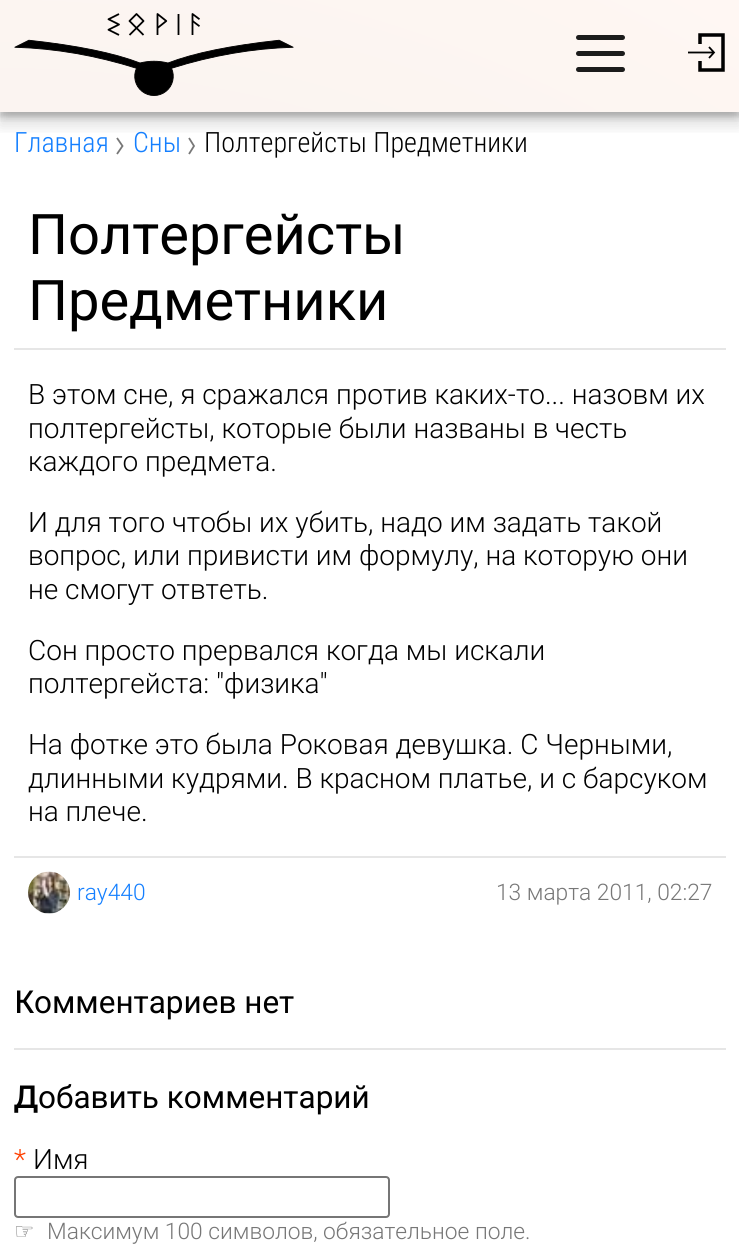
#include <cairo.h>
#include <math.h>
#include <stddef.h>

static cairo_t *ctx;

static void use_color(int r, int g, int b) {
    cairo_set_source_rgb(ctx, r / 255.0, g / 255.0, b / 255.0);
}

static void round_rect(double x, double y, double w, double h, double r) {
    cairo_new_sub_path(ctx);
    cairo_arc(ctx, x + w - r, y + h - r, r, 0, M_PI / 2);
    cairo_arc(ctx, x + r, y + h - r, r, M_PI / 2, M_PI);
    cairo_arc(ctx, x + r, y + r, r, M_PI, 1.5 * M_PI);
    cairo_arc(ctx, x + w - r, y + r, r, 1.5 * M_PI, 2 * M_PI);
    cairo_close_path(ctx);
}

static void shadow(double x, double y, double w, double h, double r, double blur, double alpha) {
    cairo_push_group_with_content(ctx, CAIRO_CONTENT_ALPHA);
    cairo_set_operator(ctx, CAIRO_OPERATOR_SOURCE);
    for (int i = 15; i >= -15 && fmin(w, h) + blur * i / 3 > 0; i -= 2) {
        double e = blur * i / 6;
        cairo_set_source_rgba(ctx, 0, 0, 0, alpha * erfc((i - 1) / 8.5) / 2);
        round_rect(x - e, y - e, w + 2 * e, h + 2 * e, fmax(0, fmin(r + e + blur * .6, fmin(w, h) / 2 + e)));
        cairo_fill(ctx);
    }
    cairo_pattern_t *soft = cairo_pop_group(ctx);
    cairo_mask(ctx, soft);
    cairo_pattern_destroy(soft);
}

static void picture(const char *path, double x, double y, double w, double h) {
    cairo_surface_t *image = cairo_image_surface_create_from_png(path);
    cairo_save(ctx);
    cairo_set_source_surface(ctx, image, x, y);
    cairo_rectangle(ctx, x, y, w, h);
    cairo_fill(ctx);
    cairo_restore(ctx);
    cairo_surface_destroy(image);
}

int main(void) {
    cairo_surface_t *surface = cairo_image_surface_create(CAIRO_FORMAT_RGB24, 739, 1257);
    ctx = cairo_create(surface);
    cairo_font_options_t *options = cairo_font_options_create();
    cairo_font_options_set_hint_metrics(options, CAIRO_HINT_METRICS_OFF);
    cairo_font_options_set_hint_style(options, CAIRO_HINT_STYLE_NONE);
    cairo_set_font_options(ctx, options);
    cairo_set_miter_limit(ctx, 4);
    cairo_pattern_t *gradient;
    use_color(255, 255, 255);
    cairo_paint(ctx);
    gradient = cairo_pattern_create_radial(0, 1258, 0, 0, 1258, 1460);
    cairo_pattern_add_color_stop_rgba(gradient, 0, 0.918, 0.914, 0.91, 1);
    cairo_pattern_add_color_stop_rgba(gradient, 1, 1, 0.969, 0.953, 1);
    cairo_set_source(ctx, gradient);
    cairo_pattern_destroy(gradient);
    cairo_rectangle(ctx, 0, 0, 739, 112);
    cairo_fill(ctx);
    cairo_new_path(ctx);
    cairo_move_to(ctx, 117, 138);
    cairo_line_to(ctx, 122.5, 146);
    cairo_line_to(ctx, 117, 154);
    use_color(119, 119, 119);
    cairo_set_line_width(ctx, 1.8);
    cairo_stroke(ctx);
    cairo_new_path(ctx);
    cairo_move_to(ctx, 189, 138);
    cairo_line_to(ctx, 194, 146);
    cairo_line_to(ctx, 189, 154);
    cairo_stroke(ctx);
    cairo_save(ctx);
    cairo_rectangle(ctx, 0, 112, 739, 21);
    cairo_clip(ctx);
    use_color(0, 0, 0);
    shadow(0, 14, 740, 112, 0, 7, 0.12);
    cairo_restore(ctx);
    cairo_save(ctx);
    cairo_rectangle(ctx, 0, 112, 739, 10);
    cairo_clip(ctx);
    use_color(0, 0, 0);
    shadow(0, 7, 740, 112, 0, 3.5, 0.12);
    cairo_restore(ctx);
    cairo_save(ctx);
    cairo_rectangle(ctx, 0, 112, 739, 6);
    cairo_clip(ctx);
    use_color(0, 0, 0);
    shadow(0, 4, 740, 112, 0, 2, 0.12);
    cairo_restore(ctx);
    picture("img1.png", 14, 13, 280, 83);
    use_color(28, 28, 28);
    round_rect(576, 35, 49, 5, 2.5);
    cairo_fill(ctx);
    round_rect(576, 51, 49, 5, 2.5);
    cairo_fill(ctx);
    round_rect(576, 67, 49, 5, 2.5);
    cairo_fill(ctx);
    cairo_new_path(ctx);
    cairo_move_to(ctx, 700, 44);
    cairo_line_to(ctx, 700, 35);
    cairo_line_to(ctx, 723, 35);
    cairo_line_to(ctx, 723, 70);
    cairo_line_to(ctx, 700, 70);
    cairo_line_to(ctx, 700, 61);
    use_color(0, 0, 0);
    cairo_set_line_width(ctx, 3.5);
    cairo_stroke(ctx);
    cairo_new_path(ctx);
    cairo_move_to(ctx, 688, 52.5);
    cairo_line_to(ctx, 714, 52.5);
    cairo_move_to(ctx, 709, 47);
    cairo_line_to(ctx, 714, 52.5);
    cairo_line_to(ctx, 709, 58);
    cairo_set_line_width(ctx, 1.8);
    cairo_stroke(ctx);
    cairo_select_font_face(ctx, "Roboto Condensed Light", CAIRO_FONT_SLANT_NORMAL, CAIRO_FONT_WEIGHT_NORMAL);
    cairo_set_font_size(ctx, 28);
    use_color(20, 127, 255);
    cairo_move_to(ctx, 14, 152);
    cairo_show_text(ctx, "Главная");
    cairo_move_to(ctx, 133, 152);
    cairo_show_text(ctx, "Сны");
    use_color(0, 0, 0);
    cairo_move_to(ctx, 204, 152);
    cairo_show_text(ctx, "Полтергейсты Предметники");
    use_color(230, 230, 230);
    cairo_rectangle(ctx, 14, 348, 712, 2);
    cairo_fill(ctx);
    cairo_select_font_face(ctx, "Roboto", CAIRO_FONT_SLANT_NORMAL, CAIRO_FONT_WEIGHT_NORMAL);
    cairo_set_font_size(ctx, 56);
    use_color(0, 0, 0);
    cairo_move_to(ctx, 28, 254);
    cairo_show_text(ctx, "Полтергейсты");
    cairo_move_to(ctx, 28, 320);
    cairo_show_text(ctx, "Предметники");
    cairo_select_font_face(ctx, "Roboto Light", CAIRO_FONT_SLANT_NORMAL, CAIRO_FONT_WEIGHT_NORMAL);
    cairo_set_font_size(ctx, 28);
    cairo_move_to(ctx, 28, 404);
    cairo_show_text(ctx, "В этом сне, я сражался против каких-то... назовм их");
    cairo_move_to(ctx, 28, 438);
    cairo_show_text(ctx, "полтергейсты, которые были названы в честь");
    cairo_move_to(ctx, 28, 471);
    cairo_show_text(ctx, "каждого предмета.");
    cairo_move_to(ctx, 28, 532);
    cairo_show_text(ctx, "И для того чтобы их убить, надо им задать такой");
    cairo_move_to(ctx, 28, 565);
    cairo_show_text(ctx, "вопрос, или привисти им формулу, на которую они");
    cairo_move_to(ctx, 28, 599);
    cairo_show_text(ctx, "не смогут отвтеть.");
    cairo_move_to(ctx, 28, 660);
    cairo_show_text(ctx, "Сон просто прервался когда мы искали");
    cairo_move_to(ctx, 28, 693);
    cairo_show_text(ctx, "полтергейста: \"физика\"");
    cairo_move_to(ctx, 28, 754);
    cairo_show_text(ctx, "На фотке это была Роковая девушка. С Черными,");
    cairo_move_to(ctx, 28, 788);
    cairo_show_text(ctx, "длинными кудрями. В красном платье, и с барсуком");
    cairo_move_to(ctx, 28, 821);
    cairo_show_text(ctx, "на плече.");
    use_color(230, 230, 230);
    cairo_rectangle(ctx, 14, 856, 712, 2);
    cairo_fill(ctx);
    picture("img2.png", 28, 871, 42, 43);
    cairo_set_font_size(ctx, 22.75);
    use_color(20, 127, 255);
    cairo_move_to(ctx, 77, 900);
    cairo_show_text(ctx, "ray440");
    use_color(119, 119, 119);
    cairo_move_to(ctx, 496, 900);
    cairo_show_text(ctx, "13 марта 2011, 02:27");
    use_color(230, 230, 230);
    cairo_rectangle(ctx, 14, 1048, 712, 2);
    cairo_fill(ctx);
    cairo_select_font_face(ctx, "Noto Sans Medium", CAIRO_FONT_SLANT_NORMAL, CAIRO_FONT_WEIGHT_NORMAL);
    cairo_set_font_size(ctx, 31.5);
    use_color(0, 0, 0);
    cairo_move_to(ctx, 14, 1013);
    cairo_show_text(ctx, "К");
    cairo_select_font_face(ctx, "Roboto", CAIRO_FONT_SLANT_NORMAL, CAIRO_FONT_WEIGHT_NORMAL);
    cairo_move_to(ctx, 34, 1013);
    cairo_show_text(ctx, "омментариев нет");
    cairo_select_font_face(ctx, "Noto Sans SemiBold", CAIRO_FONT_SLANT_NORMAL, CAIRO_FONT_WEIGHT_NORMAL);
    cairo_move_to(ctx, 14, 1108);
    cairo_show_text(ctx, "Д");
    cairo_select_font_face(ctx, "Roboto", CAIRO_FONT_SLANT_NORMAL, CAIRO_FONT_WEIGHT_NORMAL);
    cairo_move_to(ctx, 38, 1108);
    cairo_show_text(ctx, "обавить комментарий");
    cairo_select_font_face(ctx, "Roboto Light", CAIRO_FONT_SLANT_NORMAL, CAIRO_FONT_WEIGHT_NORMAL);
    cairo_set_font_size(ctx, 28);
    use_color(255, 63, 0);
    cairo_move_to(ctx, 14, 1169);
    cairo_show_text(ctx, "*");
    use_color(0, 0, 0);
    cairo_move_to(ctx, 33, 1169);
    cairo_show_text(ctx, "Имя");
    round_rect(15, 1177, 374, 40, 3);
    use_color(118, 118, 118);
    cairo_set_line_width(ctx, 2);
    cairo_stroke(ctx);
    cairo_select_font_face(ctx, "DejaVu Sans", CAIRO_FONT_SLANT_NORMAL, CAIRO_FONT_WEIGHT_NORMAL);
    cairo_set_font_size(ctx, 22.75);
    use_color(119, 119, 119);
    cairo_move_to(ctx, 14, 1239);
    cairo_show_text(ctx, "☞");
    cairo_select_font_face(ctx, "Roboto Light", CAIRO_FONT_SLANT_NORMAL, CAIRO_FONT_WEIGHT_NORMAL);
    cairo_move_to(ctx, 47, 1239);
    cairo_show_text(ctx, "Максимум 100 символов, обязательное поле.");
    cairo_surface_write_to_png(surface, "result.png");
    cairo_font_options_destroy(options);
    cairo_destroy(ctx);
    cairo_surface_destroy(surface);
    return 0;
}
